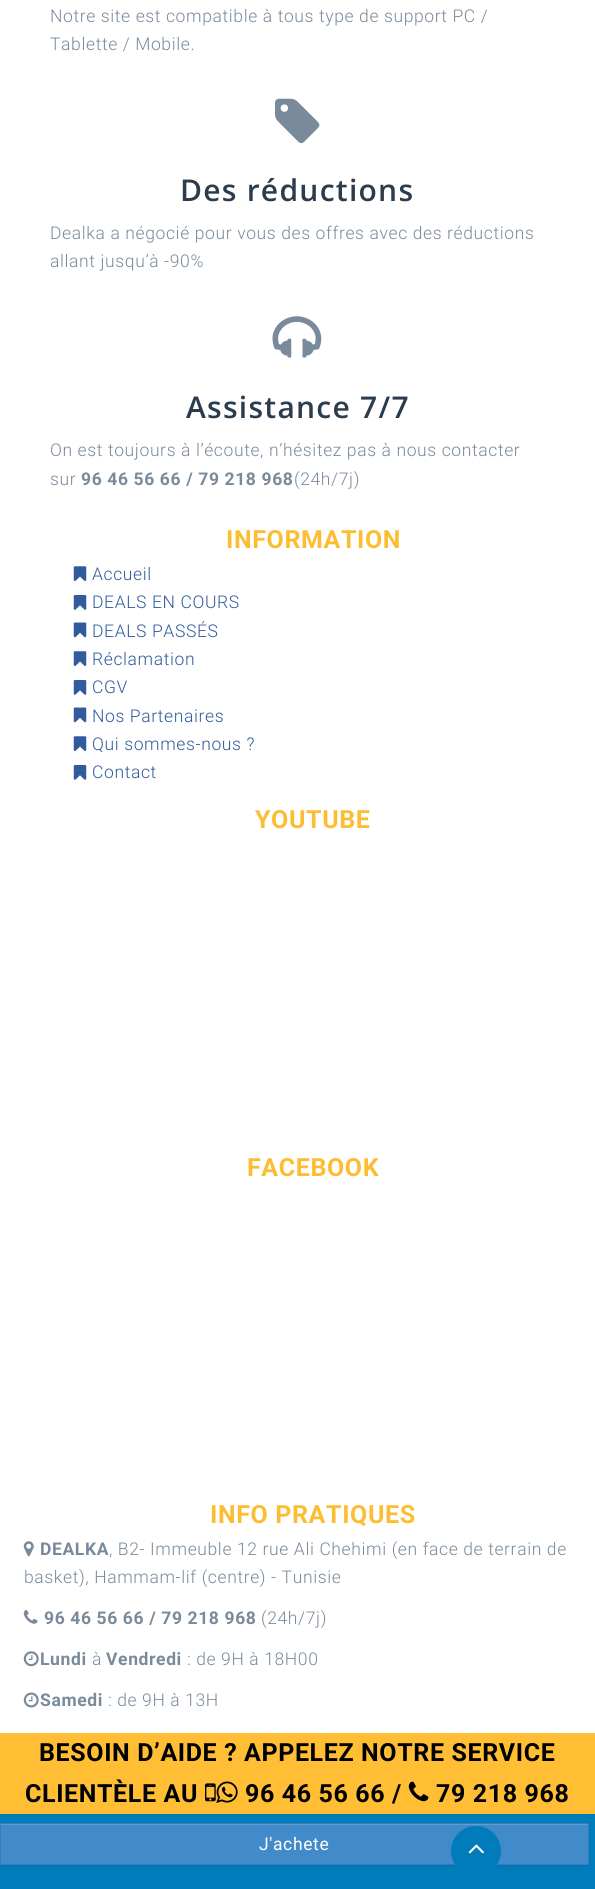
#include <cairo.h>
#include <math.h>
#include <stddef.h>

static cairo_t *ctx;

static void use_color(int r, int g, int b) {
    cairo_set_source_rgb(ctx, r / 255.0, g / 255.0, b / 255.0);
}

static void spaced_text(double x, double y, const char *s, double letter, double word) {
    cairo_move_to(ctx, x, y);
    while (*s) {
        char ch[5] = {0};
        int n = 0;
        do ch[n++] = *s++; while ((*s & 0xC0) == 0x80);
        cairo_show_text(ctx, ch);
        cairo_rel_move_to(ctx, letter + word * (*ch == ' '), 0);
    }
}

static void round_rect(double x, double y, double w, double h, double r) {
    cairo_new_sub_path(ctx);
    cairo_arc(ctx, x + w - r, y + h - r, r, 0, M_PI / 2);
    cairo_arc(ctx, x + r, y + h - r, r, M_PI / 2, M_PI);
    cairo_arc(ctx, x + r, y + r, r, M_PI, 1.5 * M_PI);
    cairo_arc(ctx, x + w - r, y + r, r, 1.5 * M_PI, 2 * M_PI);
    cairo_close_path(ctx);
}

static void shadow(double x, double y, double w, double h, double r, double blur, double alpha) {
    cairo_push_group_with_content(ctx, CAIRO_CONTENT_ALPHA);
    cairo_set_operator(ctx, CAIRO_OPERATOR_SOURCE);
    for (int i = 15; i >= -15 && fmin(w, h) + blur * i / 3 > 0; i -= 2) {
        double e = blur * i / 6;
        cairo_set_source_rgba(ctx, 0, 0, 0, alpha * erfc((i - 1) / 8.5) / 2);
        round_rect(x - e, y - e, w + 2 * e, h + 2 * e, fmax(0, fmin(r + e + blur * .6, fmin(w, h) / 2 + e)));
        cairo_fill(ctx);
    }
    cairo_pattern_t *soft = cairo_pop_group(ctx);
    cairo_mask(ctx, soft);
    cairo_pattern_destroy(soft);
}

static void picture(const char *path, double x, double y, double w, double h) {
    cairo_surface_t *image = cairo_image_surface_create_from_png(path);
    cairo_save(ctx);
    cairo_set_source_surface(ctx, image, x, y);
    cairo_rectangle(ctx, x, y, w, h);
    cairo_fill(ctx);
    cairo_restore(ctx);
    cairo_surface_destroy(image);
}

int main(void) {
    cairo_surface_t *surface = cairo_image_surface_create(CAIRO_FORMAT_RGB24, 595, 1889);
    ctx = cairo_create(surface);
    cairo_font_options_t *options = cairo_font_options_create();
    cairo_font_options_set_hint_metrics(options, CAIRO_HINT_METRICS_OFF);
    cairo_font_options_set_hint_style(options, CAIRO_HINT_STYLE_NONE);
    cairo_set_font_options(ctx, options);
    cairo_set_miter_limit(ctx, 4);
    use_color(255, 255, 255);
    cairo_paint(ctx);
    cairo_select_font_face(ctx, "Roboto Light", CAIRO_FONT_SLANT_NORMAL, CAIRO_FONT_WEIGHT_NORMAL);
    cairo_set_font_size(ctx, 17.5);
    use_color(121, 138, 155);
    spaced_text(50, 22, "Notre site est compatible à tous type de support PC /", 0.62, 0);
    spaced_text(50, 50, "Tablette / Mobile.", 0.62, 0);
    picture("img1.png", 275, 98, 45, 46);
    cairo_select_font_face(ctx, "Open Sans SemiBold", CAIRO_FONT_SLANT_NORMAL, CAIRO_FONT_WEIGHT_NORMAL);
    cairo_set_font_size(ctx, 30);
    use_color(43, 60, 77);
    spaced_text(180, 201, "Des réductions", 1.25, 0);
    cairo_select_font_face(ctx, "Roboto Light", CAIRO_FONT_SLANT_NORMAL, CAIRO_FONT_WEIGHT_NORMAL);
    cairo_set_font_size(ctx, 17.5);
    use_color(121, 138, 155);
    spaced_text(50, 239, "Dealka a négocié pour vous des offres avec des réductions", 0.62, 0);
    spaced_text(50, 267, "allant jusqu’à -90%", 0.62, 0);
    picture("img2.png", 272, 316, 50, 42);
    cairo_select_font_face(ctx, "Open Sans SemiBold", CAIRO_FONT_SLANT_NORMAL, CAIRO_FONT_WEIGHT_NORMAL);
    cairo_set_font_size(ctx, 30);
    use_color(43, 60, 77);
    spaced_text(186, 418, "Assistance 7/7", 1.25, 0);
    cairo_select_font_face(ctx, "Roboto Light", CAIRO_FONT_SLANT_NORMAL, CAIRO_FONT_WEIGHT_NORMAL);
    cairo_set_font_size(ctx, 17.5);
    use_color(121, 138, 155);
    spaced_text(50, 456, "On est toujours à l’écoute, n’hésitez pas à nous contacter", 0.62, 0);
    spaced_text(50, 485, "sur", 0.62, 0);
    cairo_select_font_face(ctx, "Roboto", CAIRO_FONT_SLANT_NORMAL, CAIRO_FONT_WEIGHT_BOLD);
    spaced_text(81, 485, "96 46 56 66 / 79 218 968", 0.62, 0);
    cairo_select_font_face(ctx, "Roboto Light", CAIRO_FONT_SLANT_NORMAL, CAIRO_FONT_WEIGHT_NORMAL);
    spaced_text(294, 485, "(24h/7j)", 0.62, 0);
    use_color(0, 124, 187);
    cairo_rectangle(ctx, 0, 1814, 595, 75);
    cairo_fill(ctx);
    use_color(0, 0, 0);
    shadow(0, 1824, 589, 42, 0, 0.5, 0.07);
    use_color(66, 139, 202);
    cairo_rectangle(ctx, 1, 1825, 587, 39);
    cairo_fill(ctx);
    use_color(94, 156, 210);
    cairo_rectangle(ctx, 1, 1824, 587, 1);
    cairo_fill(ctx);
    cairo_rectangle(ctx, 0.5, 1823.5, 588, 41);
    use_color(53, 126, 189);
    cairo_set_line_width(ctx, 1);
    cairo_stroke(ctx);
    cairo_select_font_face(ctx, "Roboto", CAIRO_FONT_SLANT_NORMAL, CAIRO_FONT_WEIGHT_NORMAL);
    use_color(255, 255, 255);
    spaced_text(259, 1850, "J'achete", 0.62, 0);
    cairo_select_font_face(ctx, "Roboto", CAIRO_FONT_SLANT_NORMAL, CAIRO_FONT_WEIGHT_BOLD);
    cairo_set_font_size(ctx, 25);
    use_color(253, 189, 50);
    spaced_text(226, 548, "INFORMATION", 0.62, 0);
    picture("img3.png", 73, 566, 14, 15);
    cairo_select_font_face(ctx, "Roboto Light", CAIRO_FONT_SLANT_NORMAL, CAIRO_FONT_WEIGHT_NORMAL);
    cairo_set_font_size(ctx, 17.5);
    use_color(49, 91, 157);
    spaced_text(92, 580, "Accueil", 0.62, 0);
    picture("img4.png", 73, 595, 14, 15);
    spaced_text(92, 608, "DEALS EN COURS", 0.62, 0);
    picture("img5.png", 73, 622, 14, 16);
    spaced_text(92, 637, "DEALS PASSÉS", 0.62, 0);
    picture("img3.png", 73, 651, 14, 15);
    spaced_text(92, 665, "Réclamation", 0.62, 0);
    picture("img4.png", 73, 680, 14, 15);
    spaced_text(92, 693, "CGV", 0.62, 0);
    picture("img5.png", 73, 707, 14, 16);
    spaced_text(92, 722, "Nos Partenaires", 0.62, 0);
    picture("img3.png", 73, 736, 14, 15);
    spaced_text(92, 750, "Qui sommes-nous ?", 0.62, 0);
    picture("img4.png", 73, 765, 14, 15);
    spaced_text(92, 778, "Contact", 0.62, 0);
    cairo_select_font_face(ctx, "Roboto", CAIRO_FONT_SLANT_NORMAL, CAIRO_FONT_WEIGHT_BOLD);
    cairo_set_font_size(ctx, 25);
    use_color(253, 189, 50);
    spaced_text(255, 828, "YOUTUBE", 0.62, 0);
    spaced_text(247, 1176, "FACEBOOK", 0.62, 0);
    spaced_text(210, 1523, "INFO PRATIQUES", 0.62, 0);
    picture("img6.png", 23, 1541, 11, 16);
    cairo_set_font_size(ctx, 17.5);
    use_color(121, 138, 155);
    spaced_text(40, 1555, "DEALKA", 0.62, 0);
    cairo_select_font_face(ctx, "Roboto Light", CAIRO_FONT_SLANT_NORMAL, CAIRO_FONT_WEIGHT_NORMAL);
    spaced_text(109, 1555, ", B2- Immeuble 12 rue Ali Chehimi (en face de terrain de", 0.62, 0);
    spaced_text(24, 1583, "basket), Hammam-lif (centre) - Tunisie", 0.62, 0);
    picture("img7.png", 23, 1610, 15, 14);
    cairo_select_font_face(ctx, "Roboto", CAIRO_FONT_SLANT_NORMAL, CAIRO_FONT_WEIGHT_BOLD);
    spaced_text(44, 1624, "96 46 56 66 / 79 218 968", 0.62, 0);
    cairo_select_font_face(ctx, "Roboto Light", CAIRO_FONT_SLANT_NORMAL, CAIRO_FONT_WEIGHT_NORMAL);
    spaced_text(261, 1624, "(24h/7j)", 0.62, 0);
    picture("img8.png", 23, 1651, 16, 16);
    cairo_select_font_face(ctx, "Roboto", CAIRO_FONT_SLANT_NORMAL, CAIRO_FONT_WEIGHT_BOLD);
    spaced_text(40, 1665, "Lundi", 0.62, 0);
    cairo_select_font_face(ctx, "Roboto Light", CAIRO_FONT_SLANT_NORMAL, CAIRO_FONT_WEIGHT_NORMAL);
    spaced_text(92, 1665, "à", 0.62, 0);
    cairo_select_font_face(ctx, "Roboto", CAIRO_FONT_SLANT_NORMAL, CAIRO_FONT_WEIGHT_BOLD);
    spaced_text(106, 1665, "Vendredi", 0.62, 0);
    cairo_select_font_face(ctx, "Roboto Light", CAIRO_FONT_SLANT_NORMAL, CAIRO_FONT_WEIGHT_NORMAL);
    spaced_text(187, 1665, ": de 9H à 18H00", 0.62, 0);
    picture("img9.png", 23, 1692, 16, 16);
    cairo_select_font_face(ctx, "Roboto", CAIRO_FONT_SLANT_NORMAL, CAIRO_FONT_WEIGHT_BOLD);
    spaced_text(40, 1706, "Samedi", 0.62, 0);
    cairo_select_font_face(ctx, "Roboto Light", CAIRO_FONT_SLANT_NORMAL, CAIRO_FONT_WEIGHT_NORMAL);
    spaced_text(108, 1706, ": de 9H à 13H", 0.62, 0);
    use_color(255, 190, 51);
    cairo_rectangle(ctx, 0, 1733, 595, 81);
    cairo_fill(ctx);
    cairo_select_font_face(ctx, "Roboto", CAIRO_FONT_SLANT_NORMAL, CAIRO_FONT_WEIGHT_BOLD);
    cairo_set_font_size(ctx, 25);
    use_color(0, 0, 0);
    spaced_text(39, 1761, "BESOIN D’AIDE ? APPELEZ NOTRE SERVICE", 0.62, 0);
    spaced_text(25, 1802, "CLIENTÈLE AU", 0.62, 0);
    picture("img10.png", 205, 1783, 11, 19);
    picture("img11.png", 216, 1781, 22, 22);
    spaced_text(245, 1802, "96 46 56 66 /", 0.62, 0);
    picture("img12.png", 408, 1781, 21, 21);
    spaced_text(436, 1802, "79 218 968", 0.62, 0);
    use_color(0, 124, 187);
    cairo_new_path(ctx);
    cairo_arc(ctx, 476, 1851, 25, 0, 2 * M_PI);
    cairo_fill(ctx);
    picture("img13.png", 468, 1844, 16, 10);
    cairo_surface_write_to_png(surface, "result.png");
    cairo_font_options_destroy(options);
    cairo_destroy(ctx);
    cairo_surface_destroy(surface);
    return 0;
}
